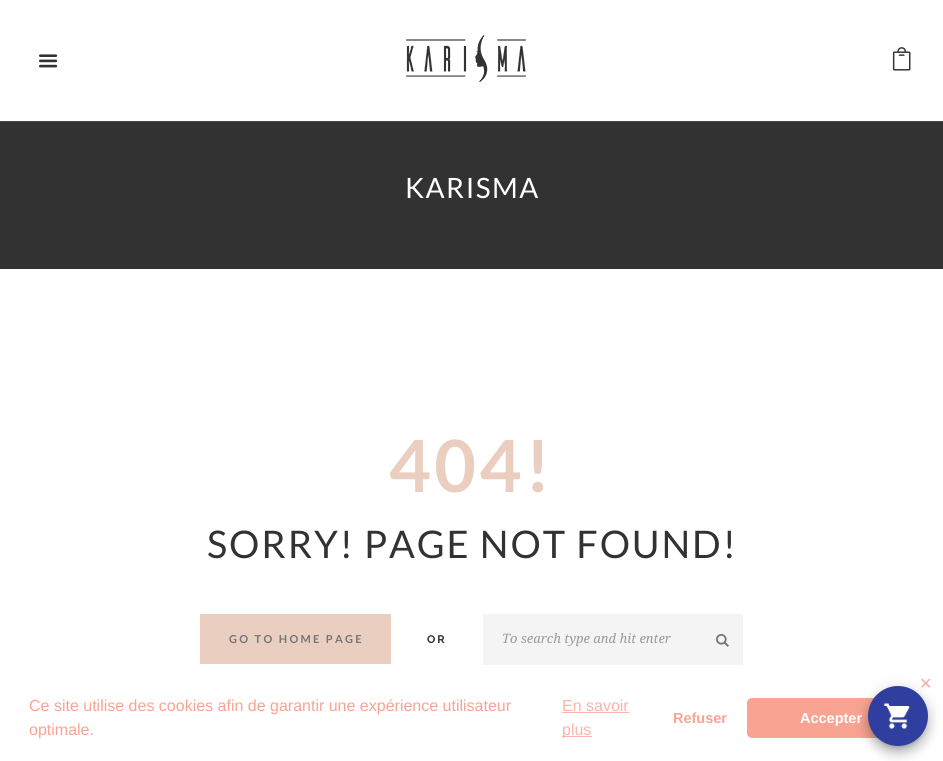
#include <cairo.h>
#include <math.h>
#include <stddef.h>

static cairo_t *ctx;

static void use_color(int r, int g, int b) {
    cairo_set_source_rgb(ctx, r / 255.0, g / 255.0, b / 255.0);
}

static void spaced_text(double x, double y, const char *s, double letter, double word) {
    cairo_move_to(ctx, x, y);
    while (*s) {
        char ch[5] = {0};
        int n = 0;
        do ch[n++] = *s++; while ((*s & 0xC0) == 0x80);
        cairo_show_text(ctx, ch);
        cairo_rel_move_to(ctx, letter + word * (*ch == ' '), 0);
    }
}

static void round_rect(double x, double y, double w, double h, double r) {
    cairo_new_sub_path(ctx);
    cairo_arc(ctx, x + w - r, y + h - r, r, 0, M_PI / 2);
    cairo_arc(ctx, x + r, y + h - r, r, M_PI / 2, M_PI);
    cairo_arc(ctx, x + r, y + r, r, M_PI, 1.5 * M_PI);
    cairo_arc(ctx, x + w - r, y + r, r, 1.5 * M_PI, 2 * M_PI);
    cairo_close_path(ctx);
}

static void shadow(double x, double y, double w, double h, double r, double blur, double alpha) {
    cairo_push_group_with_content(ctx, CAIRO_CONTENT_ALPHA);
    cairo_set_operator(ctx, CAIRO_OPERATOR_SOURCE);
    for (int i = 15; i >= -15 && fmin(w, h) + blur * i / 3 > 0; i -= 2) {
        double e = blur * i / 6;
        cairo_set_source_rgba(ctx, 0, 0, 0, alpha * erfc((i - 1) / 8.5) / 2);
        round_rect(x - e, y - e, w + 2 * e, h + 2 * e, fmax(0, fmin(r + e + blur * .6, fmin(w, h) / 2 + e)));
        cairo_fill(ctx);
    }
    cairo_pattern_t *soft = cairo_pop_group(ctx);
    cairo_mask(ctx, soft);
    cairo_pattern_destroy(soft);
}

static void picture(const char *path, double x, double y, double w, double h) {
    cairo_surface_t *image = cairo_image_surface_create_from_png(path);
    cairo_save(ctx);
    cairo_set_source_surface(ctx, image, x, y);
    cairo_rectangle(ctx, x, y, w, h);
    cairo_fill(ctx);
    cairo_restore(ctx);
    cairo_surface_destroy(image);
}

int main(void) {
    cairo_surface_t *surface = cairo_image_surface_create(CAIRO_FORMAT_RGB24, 943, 761);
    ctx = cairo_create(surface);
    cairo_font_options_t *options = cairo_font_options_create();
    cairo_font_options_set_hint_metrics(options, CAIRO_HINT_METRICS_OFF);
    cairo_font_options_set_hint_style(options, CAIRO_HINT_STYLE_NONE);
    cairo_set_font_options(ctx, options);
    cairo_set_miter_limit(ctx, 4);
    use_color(255, 255, 255);
    cairo_paint(ctx);
    picture("img1.png", 39, 54, 19, 14);
    picture("img2.png", 406, 35, 120, 47);
    picture("img3.png", 892, 47, 19, 24);
    use_color(50, 50, 50);
    cairo_rectangle(ctx, 0, 122, 943, 147);
    cairo_fill(ctx);
    use_color(69, 69, 69);
    cairo_rectangle(ctx, 0, 121, 943, 1);
    cairo_fill(ctx);
    cairo_select_font_face(ctx, "Lato", CAIRO_FONT_SLANT_NORMAL, CAIRO_FONT_WEIGHT_NORMAL);
    cairo_set_font_size(ctx, 28);
    use_color(255, 255, 255);
    spaced_text(405, 198, "KARISMA", 1.5, 0);
    cairo_select_font_face(ctx, "Lato", CAIRO_FONT_SLANT_NORMAL, CAIRO_FONT_WEIGHT_BOLD);
    cairo_set_font_size(ctx, 72);
    use_color(234, 207, 192);
    spaced_text(389, 492, "404!", 3.5, 0);
    cairo_select_font_face(ctx, "Lato", CAIRO_FONT_SLANT_NORMAL, CAIRO_FONT_WEIGHT_NORMAL);
    cairo_set_font_size(ctx, 38);
    use_color(50, 50, 50);
    spaced_text(207, 558, "SORRY! PAGE NOT FOUND!", 1.9, 0);
    use_color(234, 207, 192);
    cairo_rectangle(ctx, 200, 614, 191, 50);
    cairo_fill(ctx);
    cairo_select_font_face(ctx, "Lato", CAIRO_FONT_SLANT_NORMAL, CAIRO_FONT_WEIGHT_BOLD);
    cairo_set_font_size(ctx, 11);
    use_color(117, 117, 117);
    spaced_text(229, 643, "GO TO HOME PAGE", 2.25, 0);
    cairo_select_font_face(ctx, "Raleway", CAIRO_FONT_SLANT_NORMAL, CAIRO_FONT_WEIGHT_BOLD);
    use_color(50, 50, 50);
    spaced_text(427, 643, "OR", 2, 0);
    use_color(244, 244, 244);
    cairo_rectangle(ctx, 483, 614, 260, 51);
    cairo_fill(ctx);
    cairo_select_font_face(ctx, "Droid Serif", CAIRO_FONT_SLANT_ITALIC, CAIRO_FONT_WEIGHT_NORMAL);
    cairo_set_font_size(ctx, 13);
    use_color(154, 154, 154);
    cairo_move_to(ctx, 502, 643);
    cairo_show_text(ctx, "To search type and hit enter");
    picture("img4.png", 716, 634, 13, 13);
    use_color(249, 163, 146);
    round_rect(748, 699, 165, 38, 4);
    cairo_fill_preserve(ctx);
    cairo_stroke(ctx);
    use_color(0, 0, 0);
    shadow(866, 687, 64, 64, 32, 7, 0.12);
    shadow(867, 693, 62, 62, 31, 5, 0.14);
    shadow(871, 694, 54, 54, 27, 2.5, 0.2);
    cairo_select_font_face(ctx, "DejaVu Sans", CAIRO_FONT_SLANT_NORMAL, CAIRO_FONT_WEIGHT_NORMAL);
    cairo_set_font_size(ctx, 16);
    use_color(250, 172, 157);
    cairo_move_to(ctx, 919, 689);
    cairo_show_text(ctx, "✕");
    use_color(48, 63, 159);
    cairo_new_path(ctx);
    cairo_arc(ctx, 898, 716, 30, 0, 2 * M_PI);
    cairo_fill(ctx);
    picture("img5.png", 883, 703, 27, 26);
    cairo_select_font_face(ctx, "Liberation Sans", CAIRO_FONT_SLANT_NORMAL, CAIRO_FONT_WEIGHT_NORMAL);
    use_color(249, 163, 146);
    cairo_move_to(ctx, 29, 711);
    cairo_show_text(ctx, "Ce site utilise des cookies afin de garantir une expérience utilisateur");
    cairo_move_to(ctx, 29, 735);
    cairo_show_text(ctx, "optimale.");
    use_color(250, 181, 168);
    cairo_move_to(ctx, 562, 711);
    cairo_show_text(ctx, "En savoir");
    cairo_rectangle(ctx, 562, 712, 67, 1);
    cairo_fill(ctx);
    cairo_rectangle(ctx, 562, 736, 30, 1);
    cairo_fill(ctx);
    cairo_move_to(ctx, 562, 735);
    cairo_show_text(ctx, "plus");
    cairo_select_font_face(ctx, "Liberation Sans", CAIRO_FONT_SLANT_NORMAL, CAIRO_FONT_WEIGHT_BOLD);
    cairo_set_font_size(ctx, 14.5);
    use_color(249, 163, 146);
    cairo_move_to(ctx, 673, 723);
    cairo_show_text(ctx, "Refuser");
    use_color(255, 255, 255);
    cairo_move_to(ctx, 800, 723);
    cairo_show_text(ctx, "Accepter");
    cairo_surface_write_to_png(surface, "result.png");
    cairo_font_options_destroy(options);
    cairo_destroy(ctx);
    cairo_surface_destroy(surface);
    return 0;
}
